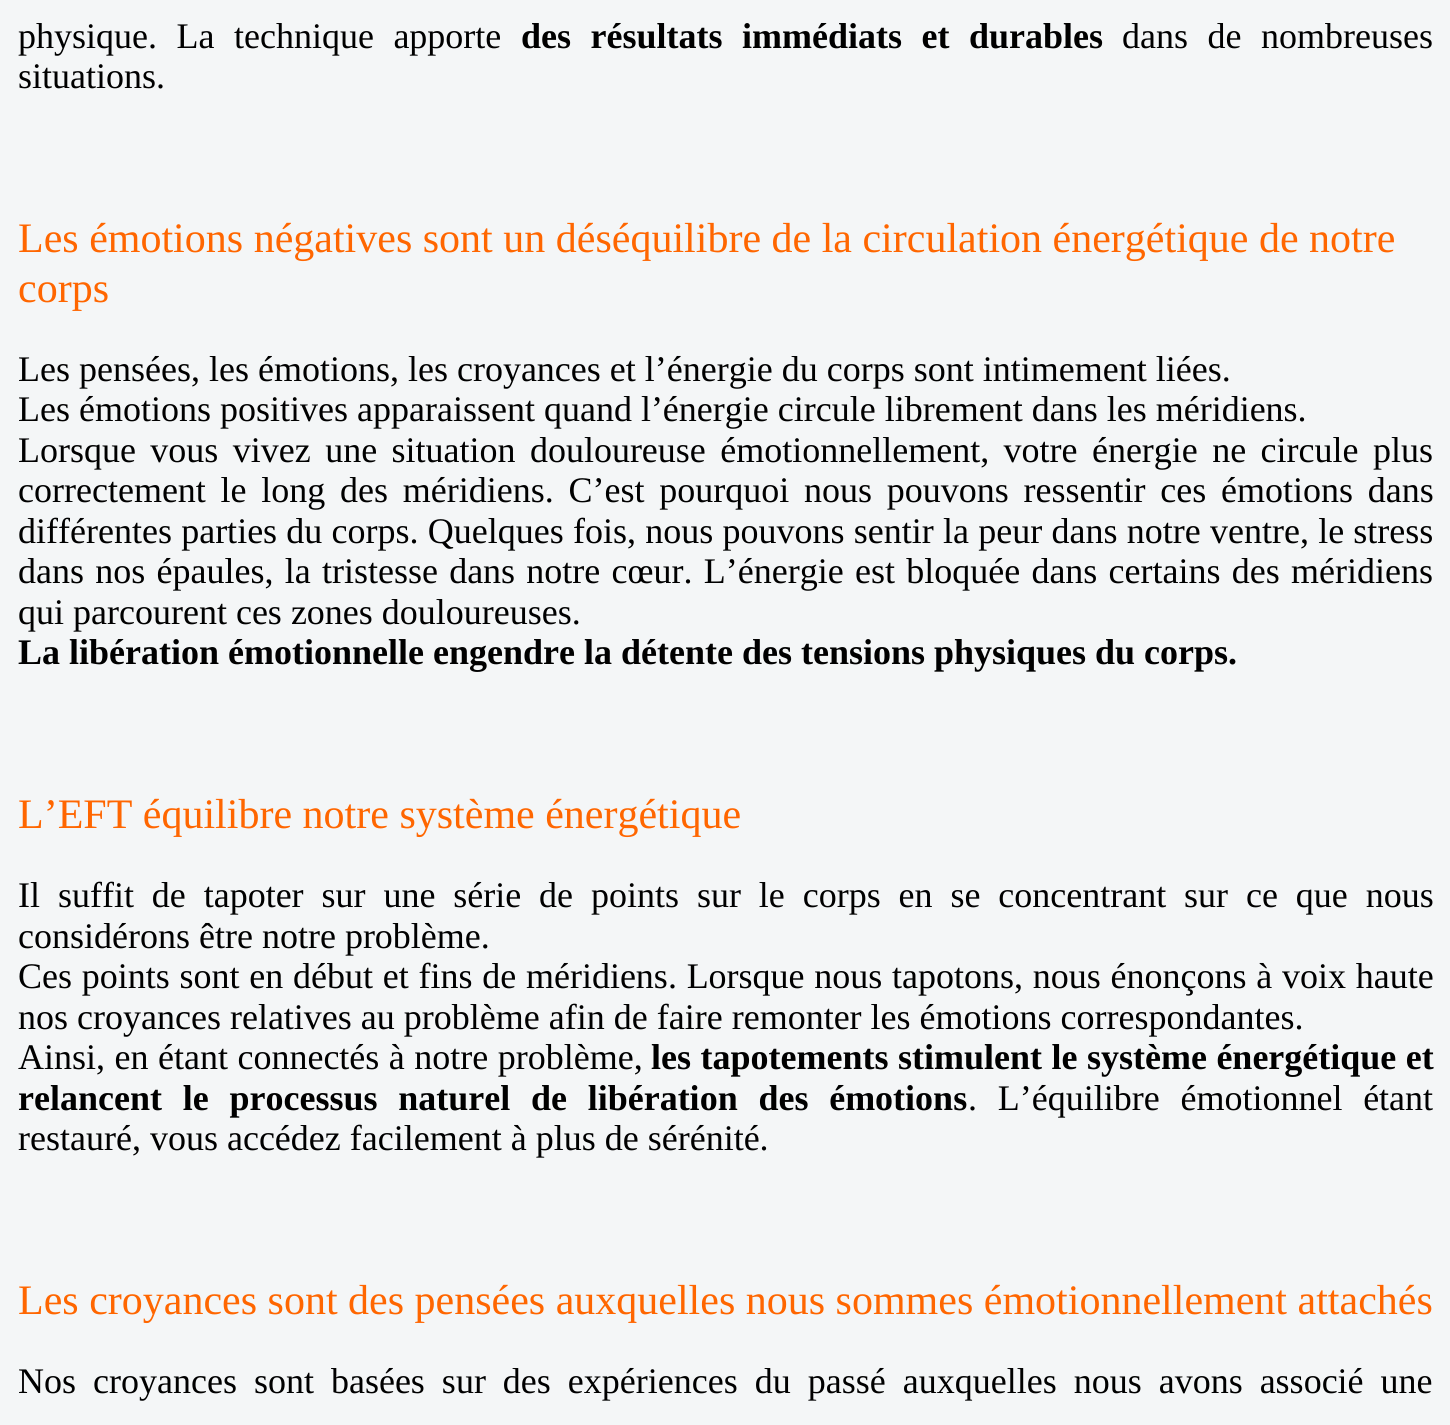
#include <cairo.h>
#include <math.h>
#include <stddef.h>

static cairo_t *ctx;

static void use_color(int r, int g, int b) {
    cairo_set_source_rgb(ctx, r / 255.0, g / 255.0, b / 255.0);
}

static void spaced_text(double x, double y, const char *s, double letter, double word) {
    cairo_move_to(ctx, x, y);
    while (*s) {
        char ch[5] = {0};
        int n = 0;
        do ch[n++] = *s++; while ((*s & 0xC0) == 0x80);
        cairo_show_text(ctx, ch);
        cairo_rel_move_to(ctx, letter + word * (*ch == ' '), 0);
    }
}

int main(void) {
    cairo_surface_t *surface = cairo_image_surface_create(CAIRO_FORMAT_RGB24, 1450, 1425);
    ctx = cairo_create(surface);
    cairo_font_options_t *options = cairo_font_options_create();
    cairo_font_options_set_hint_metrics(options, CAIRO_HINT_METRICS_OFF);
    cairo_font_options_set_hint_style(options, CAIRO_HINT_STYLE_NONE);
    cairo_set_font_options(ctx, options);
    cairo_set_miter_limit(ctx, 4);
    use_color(244, 246, 247);
    cairo_paint(ctx);
    cairo_select_font_face(ctx, "Liberation Serif", CAIRO_FONT_SLANT_NORMAL, CAIRO_FONT_WEIGHT_NORMAL);
    cairo_set_font_size(ctx, 36);
    use_color(0, 0, 0);
    spaced_text(18, 48, "physique. La technique apporte", 0, 10.5);
    cairo_select_font_face(ctx, "Liberation Serif", CAIRO_FONT_SLANT_NORMAL, CAIRO_FONT_WEIGHT_BOLD);
    spaced_text(521, 48, "des résultats immédiats et durables", 0, 10.5);
    cairo_select_font_face(ctx, "Liberation Serif", CAIRO_FONT_SLANT_NORMAL, CAIRO_FONT_WEIGHT_NORMAL);
    spaced_text(1122, 48, "dans de nombreuses", 0, 10.5);
    cairo_move_to(ctx, 18, 88);
    cairo_show_text(ctx, "situations.");
    cairo_set_font_size(ctx, 42);
    use_color(255, 102, 0);
    cairo_move_to(ctx, 18, 252);
    cairo_show_text(ctx, "Les émotions négatives sont un déséquilibre de la circulation énergétique de notre");
    cairo_move_to(ctx, 18, 302);
    cairo_show_text(ctx, "corps");
    cairo_set_font_size(ctx, 36);
    use_color(0, 0, 0);
    cairo_move_to(ctx, 18, 381);
    cairo_show_text(ctx, "Les pensées, les émotions, les croyances et l’énergie du corps sont intimement liées.");
    cairo_move_to(ctx, 18, 421);
    cairo_show_text(ctx, "Les émotions positives apparaissent quand l’énergie circule librement dans les méridiens.");
    spaced_text(18, 462, "Lorsque vous vivez une situation douloureuse émotionnellement, votre énergie ne circule plus", 0, 5.4);
    spaced_text(18, 502, "correctement le long des méridiens. C’est pourquoi nous pouvons ressentir ces émotions dans", 0, 5.75);
    spaced_text(18, 543, "différentes parties du corps. Quelques fois, nous pouvons sentir la peur dans notre ventre, le stress", 0, 0.25);
    spaced_text(18, 583, "dans nos épaules, la tristesse dans notre cœur. L’énergie est bloquée dans certains des méridiens", 0, 2.25);
    cairo_move_to(ctx, 18, 624);
    cairo_show_text(ctx, "qui parcourent ces zones douloureuses.");
    cairo_select_font_face(ctx, "Liberation Serif", CAIRO_FONT_SLANT_NORMAL, CAIRO_FONT_WEIGHT_BOLD);
    cairo_move_to(ctx, 18, 664);
    cairo_show_text(ctx, "La libération émotionnelle engendre la détente des tensions physiques du corps.");
    cairo_select_font_face(ctx, "Liberation Serif", CAIRO_FONT_SLANT_NORMAL, CAIRO_FONT_WEIGHT_NORMAL);
    cairo_set_font_size(ctx, 42);
    use_color(255, 102, 0);
    cairo_move_to(ctx, 18, 828);
    cairo_show_text(ctx, "L’EFT équilibre notre système énergétique");
    cairo_set_font_size(ctx, 36);
    use_color(0, 0, 0);
    spaced_text(18, 907, "Il suffit de tapoter sur une série de points sur le corps en se concentrant sur ce que nous", 0, 8.9);
    cairo_move_to(ctx, 18, 948);
    cairo_show_text(ctx, "considérons être notre problème.");
    spaced_text(18, 988, "Ces points sont en début et fins de méridiens. Lorsque nous tapotons, nous énonçons à voix haute", 0, 0.75);
    cairo_move_to(ctx, 18, 1029);
    cairo_show_text(ctx, "nos croyances relatives au problème afin de faire remonter les émotions correspondantes.");
    spaced_text(18, 1069, "Ainsi, en étant connectés à notre problème,", 0, 0.5);
    cairo_select_font_face(ctx, "Liberation Serif", CAIRO_FONT_SLANT_NORMAL, CAIRO_FONT_WEIGHT_BOLD);
    spaced_text(651, 1069, "les tapotements stimulent le système énergétique et", 0, 0.5);
    spaced_text(18, 1110, "relancent le processus naturel de libération des émotions", 0, 11.75);
    cairo_select_font_face(ctx, "Liberation Serif", CAIRO_FONT_SLANT_NORMAL, CAIRO_FONT_WEIGHT_NORMAL);
    spaced_text(968, 1110, ". L’équilibre émotionnel étant", 0, 11.75);
    cairo_move_to(ctx, 18, 1150);
    cairo_show_text(ctx, "restauré, vous accédez facilement à plus de sérénité.");
    cairo_set_font_size(ctx, 42);
    use_color(255, 102, 0);
    cairo_move_to(ctx, 18, 1314);
    cairo_show_text(ctx, "Les croyances sont des pensées auxquelles nous sommes émotionnellement attachés");
    cairo_set_font_size(ctx, 36);
    use_color(0, 0, 0);
    spaced_text(18, 1393, "Nos croyances sont basées sur des expériences du passé auxquelles nous avons associé une", 0, 8);
    cairo_surface_write_to_png(surface, "result.png");
    cairo_font_options_destroy(options);
    cairo_destroy(ctx);
    cairo_surface_destroy(surface);
    return 0;
}
